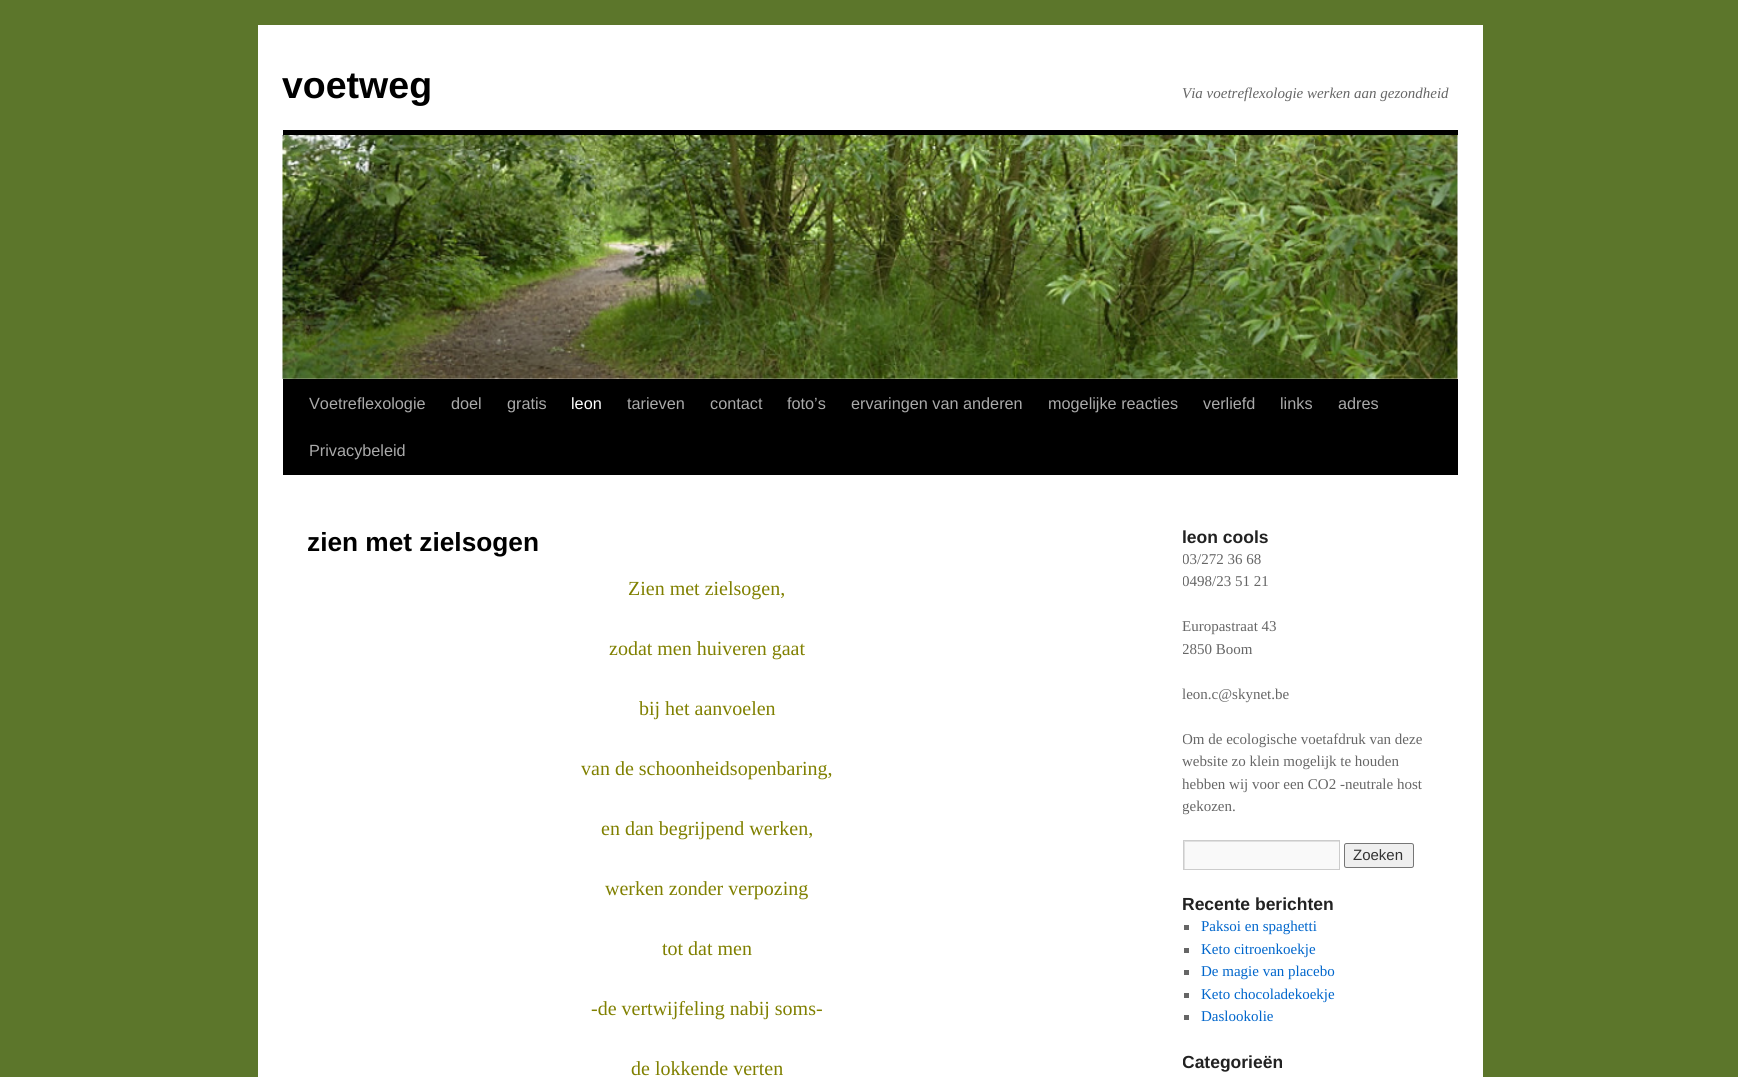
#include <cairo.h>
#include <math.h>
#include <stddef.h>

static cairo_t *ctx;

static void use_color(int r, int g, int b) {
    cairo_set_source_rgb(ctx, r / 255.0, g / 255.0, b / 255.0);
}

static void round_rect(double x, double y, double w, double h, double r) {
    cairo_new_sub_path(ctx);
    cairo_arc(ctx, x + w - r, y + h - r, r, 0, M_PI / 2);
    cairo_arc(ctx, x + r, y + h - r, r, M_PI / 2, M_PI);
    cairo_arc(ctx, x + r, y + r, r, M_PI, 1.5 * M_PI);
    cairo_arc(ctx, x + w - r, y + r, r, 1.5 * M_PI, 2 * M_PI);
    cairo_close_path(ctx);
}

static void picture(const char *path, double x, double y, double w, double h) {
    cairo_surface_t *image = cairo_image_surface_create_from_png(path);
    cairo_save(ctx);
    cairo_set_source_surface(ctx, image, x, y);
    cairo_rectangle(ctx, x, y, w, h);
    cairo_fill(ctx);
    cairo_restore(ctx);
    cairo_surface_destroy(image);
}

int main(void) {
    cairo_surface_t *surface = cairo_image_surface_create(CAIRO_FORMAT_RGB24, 1738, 1077);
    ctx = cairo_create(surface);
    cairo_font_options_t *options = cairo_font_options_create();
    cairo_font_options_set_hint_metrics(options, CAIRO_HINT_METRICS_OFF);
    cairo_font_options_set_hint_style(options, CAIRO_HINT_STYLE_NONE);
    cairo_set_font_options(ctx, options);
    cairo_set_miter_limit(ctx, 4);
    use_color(92, 118, 43);
    cairo_paint(ctx);
    use_color(255, 255, 255);
    cairo_rectangle(ctx, 258, 25, 1225, 1052);
    cairo_fill(ctx);
    cairo_select_font_face(ctx, "Liberation Sans", CAIRO_FONT_SLANT_NORMAL, CAIRO_FONT_WEIGHT_BOLD);
    cairo_set_font_size(ctx, 37.5);
    use_color(0, 0, 0);
    cairo_move_to(ctx, 282, 98);
    cairo_show_text(ctx, "voetweg");
    cairo_select_font_face(ctx, "Liberation Serif", CAIRO_FONT_SLANT_ITALIC, CAIRO_FONT_WEIGHT_NORMAL);
    cairo_set_font_size(ctx, 15);
    use_color(102, 102, 102);
    cairo_move_to(ctx, 1182, 98);
    cairo_show_text(ctx, "Via voetreflexologie werken aan gezondheid");
    use_color(0, 0, 0);
    cairo_rectangle(ctx, 283, 130, 1175, 5);
    cairo_fill(ctx);
    cairo_rectangle(ctx, 283, 379, 1175, 96);
    cairo_fill(ctx);
    picture("img1.png", 282, 135, 1176, 244);
    cairo_select_font_face(ctx, "Liberation Sans", CAIRO_FONT_SLANT_NORMAL, CAIRO_FONT_WEIGHT_NORMAL);
    cairo_set_font_size(ctx, 16.25);
    use_color(170, 170, 170);
    cairo_move_to(ctx, 309, 409);
    cairo_show_text(ctx, "Voetreflexologie");
    cairo_move_to(ctx, 451, 409);
    cairo_show_text(ctx, "doel");
    cairo_move_to(ctx, 507, 409);
    cairo_show_text(ctx, "gratis");
    use_color(255, 255, 255);
    cairo_move_to(ctx, 571, 409);
    cairo_show_text(ctx, "leon");
    use_color(170, 170, 170);
    cairo_move_to(ctx, 627, 409);
    cairo_show_text(ctx, "tarieven");
    cairo_move_to(ctx, 710, 409);
    cairo_show_text(ctx, "contact");
    cairo_move_to(ctx, 787, 409);
    cairo_show_text(ctx, "foto’s");
    cairo_move_to(ctx, 851, 409);
    cairo_show_text(ctx, "ervaringen van anderen");
    cairo_move_to(ctx, 1048, 409);
    cairo_show_text(ctx, "mogelijke reacties");
    cairo_move_to(ctx, 1203, 409);
    cairo_show_text(ctx, "verliefd");
    cairo_move_to(ctx, 1280, 409);
    cairo_show_text(ctx, "links");
    cairo_move_to(ctx, 1338, 409);
    cairo_show_text(ctx, "adres");
    cairo_move_to(ctx, 309, 456);
    cairo_show_text(ctx, "Privacybeleid");
    cairo_select_font_face(ctx, "Liberation Sans", CAIRO_FONT_SLANT_NORMAL, CAIRO_FONT_WEIGHT_BOLD);
    cairo_set_font_size(ctx, 26.25);
    use_color(0, 0, 0);
    cairo_move_to(ctx, 307, 551);
    cairo_show_text(ctx, "zien met zielsogen");
    cairo_select_font_face(ctx, "Liberation Serif", CAIRO_FONT_SLANT_NORMAL, CAIRO_FONT_WEIGHT_NORMAL);
    cairo_set_font_size(ctx, 20);
    use_color(128, 128, 0);
    cairo_move_to(ctx, 628, 595);
    cairo_show_text(ctx, "Zien met zielsogen,");
    cairo_move_to(ctx, 609, 655);
    cairo_show_text(ctx, "zodat men huiveren gaat");
    cairo_move_to(ctx, 639, 715);
    cairo_show_text(ctx, "bij het aanvoelen");
    cairo_move_to(ctx, 581, 775);
    cairo_show_text(ctx, "van de schoonheidsopenbaring,");
    cairo_move_to(ctx, 601, 835);
    cairo_show_text(ctx, "en dan begrijpend werken,");
    cairo_move_to(ctx, 605, 895);
    cairo_show_text(ctx, "werken zonder verpozing");
    cairo_move_to(ctx, 662, 955);
    cairo_show_text(ctx, "tot dat men");
    cairo_move_to(ctx, 591, 1015);
    cairo_show_text(ctx, "-de vertwijfeling nabij soms-");
    cairo_move_to(ctx, 631, 1075);
    cairo_show_text(ctx, "de lokkende verten");
    cairo_select_font_face(ctx, "Liberation Sans", CAIRO_FONT_SLANT_NORMAL, CAIRO_FONT_WEIGHT_BOLD);
    cairo_set_font_size(ctx, 17.5);
    use_color(34, 34, 34);
    cairo_move_to(ctx, 1182, 543);
    cairo_show_text(ctx, "leon cools");
    cairo_save(ctx);
    cairo_rectangle(ctx, 1183, 525, 275, 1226);
    cairo_clip(ctx);
    cairo_select_font_face(ctx, "Liberation Serif", CAIRO_FONT_SLANT_NORMAL, CAIRO_FONT_WEIGHT_NORMAL);
    cairo_set_font_size(ctx, 15);
    use_color(102, 102, 102);
    cairo_move_to(ctx, 1182, 564);
    cairo_show_text(ctx, "03/272 36 68");
    cairo_move_to(ctx, 1182, 586);
    cairo_show_text(ctx, "0498/23 51 21");
    cairo_restore(ctx);
    cairo_select_font_face(ctx, "Liberation Serif", CAIRO_FONT_SLANT_NORMAL, CAIRO_FONT_WEIGHT_NORMAL);
    cairo_set_font_size(ctx, 15);
    use_color(102, 102, 102);
    cairo_move_to(ctx, 1182, 631);
    cairo_show_text(ctx, "Europastraat 43");
    cairo_save(ctx);
    cairo_rectangle(ctx, 1183, 525, 275, 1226);
    cairo_clip(ctx);
    cairo_move_to(ctx, 1182, 654);
    cairo_show_text(ctx, "2850 Boom");
    cairo_restore(ctx);
    cairo_move_to(ctx, 1182, 699);
    cairo_show_text(ctx, "leon.c@skynet.be");
    cairo_save(ctx);
    cairo_rectangle(ctx, 1183, 525, 275, 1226);
    cairo_clip(ctx);
    cairo_move_to(ctx, 1182, 744);
    cairo_show_text(ctx, "Om de ecologische voetafdruk van deze");
    cairo_restore(ctx);
    cairo_move_to(ctx, 1182, 766);
    cairo_show_text(ctx, "website zo klein mogelijk te houden");
    cairo_move_to(ctx, 1182, 789);
    cairo_show_text(ctx, "hebben wij voor een CO2 -neutrale host");
    cairo_save(ctx);
    cairo_rectangle(ctx, 1183, 525, 275, 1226);
    cairo_clip(ctx);
    cairo_move_to(ctx, 1182, 811);
    cairo_show_text(ctx, "gekozen.");
    cairo_restore(ctx);
    use_color(249, 249, 249);
    cairo_rectangle(ctx, 1185, 842, 154, 27);
    cairo_fill(ctx);
    cairo_save(ctx);
    cairo_rectangle(ctx, 1184, 841, 155, 28);
    cairo_clip(ctx);
    use_color(224, 224, 224);
    cairo_set_fill_rule(ctx, CAIRO_FILL_RULE_EVEN_ODD);
    cairo_new_path(ctx);
    cairo_move_to(ctx, 1060, 718);
    cairo_line_to(ctx, 1462, 718);
    cairo_line_to(ctx, 1462, 992);
    cairo_line_to(ctx, 1060, 992);
    cairo_close_path(ctx);
    cairo_move_to(ctx, 1185, 842);
    cairo_line_to(ctx, 1340, 842);
    cairo_line_to(ctx, 1340, 870);
    cairo_line_to(ctx, 1185, 870);
    cairo_close_path(ctx);
    cairo_fill(ctx);
    cairo_restore(ctx);
    cairo_rectangle(ctx, 1183.5, 840.5, 156, 29);
    use_color(204, 204, 204);
    cairo_set_line_width(ctx, 1);
    cairo_stroke(ctx);
    use_color(239, 239, 239);
    round_rect(1344.5, 843.5, 69, 24, 2);
    cairo_fill_preserve(ctx);
    use_color(118, 118, 118);
    cairo_stroke(ctx);
    cairo_select_font_face(ctx, "Liberation Sans", CAIRO_FONT_SLANT_NORMAL, CAIRO_FONT_WEIGHT_NORMAL);
    use_color(51, 51, 51);
    cairo_move_to(ctx, 1353, 860);
    cairo_show_text(ctx, "Zoeken");
    cairo_select_font_face(ctx, "Liberation Sans", CAIRO_FONT_SLANT_NORMAL, CAIRO_FONT_WEIGHT_BOLD);
    cairo_set_font_size(ctx, 17.5);
    use_color(34, 34, 34);
    cairo_move_to(ctx, 1182, 910);
    cairo_show_text(ctx, "Recente berichten");
    use_color(102, 102, 102);
    cairo_rectangle(ctx, 1184, 925, 5, 5);
    cairo_fill(ctx);
    cairo_select_font_face(ctx, "Liberation Serif", CAIRO_FONT_SLANT_NORMAL, CAIRO_FONT_WEIGHT_NORMAL);
    cairo_set_font_size(ctx, 15);
    use_color(0, 102, 204);
    cairo_move_to(ctx, 1201, 931);
    cairo_show_text(ctx, "Paksoi en spaghetti");
    use_color(102, 102, 102);
    cairo_rectangle(ctx, 1184, 948, 5, 5);
    cairo_fill(ctx);
    use_color(0, 102, 204);
    cairo_move_to(ctx, 1201, 954);
    cairo_show_text(ctx, "Keto citroenkoekje");
    use_color(102, 102, 102);
    cairo_rectangle(ctx, 1184, 970, 5, 5);
    cairo_fill(ctx);
    use_color(0, 102, 204);
    cairo_move_to(ctx, 1201, 976);
    cairo_show_text(ctx, "De magie van placebo");
    use_color(102, 102, 102);
    cairo_rectangle(ctx, 1184, 993, 5, 5);
    cairo_fill(ctx);
    use_color(0, 102, 204);
    cairo_move_to(ctx, 1201, 999);
    cairo_show_text(ctx, "Keto chocoladekoekje");
    use_color(102, 102, 102);
    cairo_rectangle(ctx, 1184, 1015, 5, 5);
    cairo_fill(ctx);
    use_color(0, 102, 204);
    cairo_move_to(ctx, 1201, 1021);
    cairo_show_text(ctx, "Daslookolie");
    cairo_save(ctx);
    cairo_rectangle(ctx, 1183, 525, 275, 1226);
    cairo_clip(ctx);
    cairo_select_font_face(ctx, "Liberation Sans", CAIRO_FONT_SLANT_NORMAL, CAIRO_FONT_WEIGHT_BOLD);
    cairo_set_font_size(ctx, 17.5);
    use_color(34, 34, 34);
    cairo_move_to(ctx, 1182, 1068);
    cairo_show_text(ctx, "Categorieën");
    cairo_restore(ctx);
    cairo_surface_write_to_png(surface, "result.png");
    cairo_font_options_destroy(options);
    cairo_destroy(ctx);
    cairo_surface_destroy(surface);
    return 0;
}
